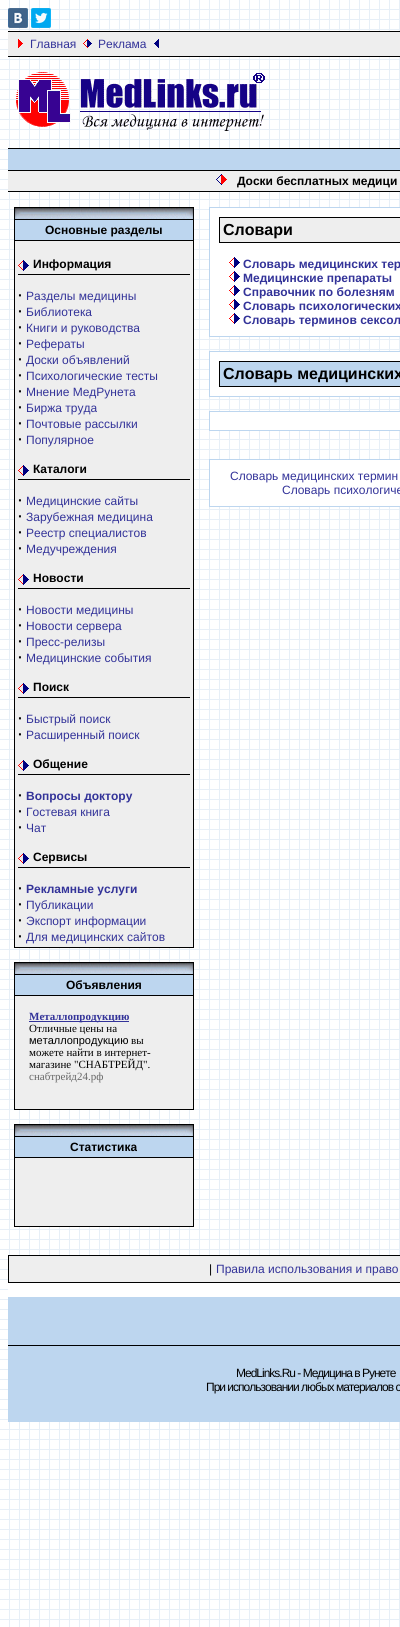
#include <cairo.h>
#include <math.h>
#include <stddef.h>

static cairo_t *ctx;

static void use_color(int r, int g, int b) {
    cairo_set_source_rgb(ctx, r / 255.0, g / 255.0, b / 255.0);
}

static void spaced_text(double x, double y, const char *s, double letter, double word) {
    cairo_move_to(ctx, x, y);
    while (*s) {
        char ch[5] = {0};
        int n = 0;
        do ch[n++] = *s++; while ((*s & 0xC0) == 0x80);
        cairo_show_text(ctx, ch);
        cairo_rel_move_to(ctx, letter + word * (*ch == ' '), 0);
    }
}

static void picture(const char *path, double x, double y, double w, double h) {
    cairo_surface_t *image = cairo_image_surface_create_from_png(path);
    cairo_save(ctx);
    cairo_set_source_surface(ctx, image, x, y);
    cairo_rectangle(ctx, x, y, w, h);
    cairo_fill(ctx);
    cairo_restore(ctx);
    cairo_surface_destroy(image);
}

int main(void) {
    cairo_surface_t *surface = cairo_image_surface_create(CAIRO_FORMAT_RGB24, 400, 1627);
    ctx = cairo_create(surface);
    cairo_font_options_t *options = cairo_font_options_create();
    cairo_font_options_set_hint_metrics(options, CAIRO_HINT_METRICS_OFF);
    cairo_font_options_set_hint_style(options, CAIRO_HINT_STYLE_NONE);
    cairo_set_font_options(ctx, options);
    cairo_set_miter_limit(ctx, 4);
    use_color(255, 255, 255);
    cairo_paint(ctx);
    picture("img1.png", 0, 0, 400, 1627);
    picture("img2.png", 8, 8, 20, 20);
    picture("img3.png", 31, 8, 20, 20);
    use_color(238, 238, 238);
    cairo_rectangle(ctx, 8, 32, 392, 24);
    cairo_fill(ctx);
    use_color(0, 0, 0);
    cairo_rectangle(ctx, 8, 31, 392, 1);
    cairo_fill(ctx);
    picture("img4.png", 18, 39, 5, 9);
    cairo_select_font_face(ctx, "Liberation Sans", CAIRO_FONT_SLANT_NORMAL, CAIRO_FONT_WEIGHT_NORMAL);
    cairo_set_font_size(ctx, 12);
    use_color(51, 51, 153);
    cairo_move_to(ctx, 30, 48);
    cairo_show_text(ctx, "Главная");
    picture("img5.png", 83, 39, 9, 9);
    cairo_move_to(ctx, 98, 48);
    cairo_show_text(ctx, "Реклама");
    picture("img6.png", 154, 39, 5, 9);
    use_color(0, 0, 0);
    cairo_rectangle(ctx, 8, 56, 392, 1);
    cairo_fill(ctx);
    picture("img7.png", 16, 72, 249, 59);
    cairo_rectangle(ctx, 8, 148, 392, 1);
    cairo_fill(ctx);
    use_color(189, 214, 239);
    cairo_rectangle(ctx, 8, 149, 392, 21);
    cairo_fill(ctx);
    use_color(0, 0, 0);
    cairo_rectangle(ctx, 8, 170, 392, 22);
    cairo_fill(ctx);
    use_color(238, 238, 238);
    cairo_rectangle(ctx, 8, 171, 392, 20);
    cairo_fill(ctx);
    picture("img8.png", 216, 174, 11, 11);
    cairo_select_font_face(ctx, "Liberation Sans", CAIRO_FONT_SLANT_NORMAL, CAIRO_FONT_WEIGHT_BOLD);
    use_color(0, 0, 0);
    cairo_move_to(ctx, 237, 185);
    cairo_show_text(ctx, "Доски бесплатных медици");
    picture("img9.png", 14, 207, 180, 12);
    cairo_rectangle(ctx, 14, 219, 180, 729);
    cairo_fill(ctx);
    use_color(189, 214, 239);
    cairo_rectangle(ctx, 15, 220, 178, 20);
    cairo_fill(ctx);
    use_color(0, 0, 0);
    cairo_move_to(ctx, 45, 234);
    cairo_show_text(ctx, "Основные разделы");
    use_color(238, 238, 238);
    cairo_rectangle(ctx, 15, 241, 178, 706);
    cairo_fill(ctx);
    picture("img10.png", 18, 260, 11, 11);
    use_color(0, 0, 0);
    cairo_rectangle(ctx, 18, 274, 172, 1);
    cairo_fill(ctx);
    cairo_move_to(ctx, 33, 268);
    cairo_show_text(ctx, "Информация");
    cairo_set_font_size(ctx, 14);
    cairo_move_to(ctx, 18, 300);
    cairo_show_text(ctx, "·");
    cairo_select_font_face(ctx, "Liberation Sans", CAIRO_FONT_SLANT_NORMAL, CAIRO_FONT_WEIGHT_NORMAL);
    cairo_set_font_size(ctx, 12);
    use_color(51, 51, 153);
    cairo_move_to(ctx, 26, 300);
    cairo_show_text(ctx, "Разделы медицины");
    cairo_select_font_face(ctx, "Liberation Sans", CAIRO_FONT_SLANT_NORMAL, CAIRO_FONT_WEIGHT_BOLD);
    cairo_set_font_size(ctx, 14);
    use_color(0, 0, 0);
    cairo_move_to(ctx, 18, 316);
    cairo_show_text(ctx, "·");
    cairo_select_font_face(ctx, "Liberation Sans", CAIRO_FONT_SLANT_NORMAL, CAIRO_FONT_WEIGHT_NORMAL);
    cairo_set_font_size(ctx, 12);
    use_color(51, 51, 153);
    cairo_move_to(ctx, 26, 316);
    cairo_show_text(ctx, "Библиотека");
    cairo_select_font_face(ctx, "Liberation Sans", CAIRO_FONT_SLANT_NORMAL, CAIRO_FONT_WEIGHT_BOLD);
    cairo_set_font_size(ctx, 14);
    use_color(0, 0, 0);
    cairo_move_to(ctx, 18, 332);
    cairo_show_text(ctx, "·");
    cairo_select_font_face(ctx, "Liberation Sans", CAIRO_FONT_SLANT_NORMAL, CAIRO_FONT_WEIGHT_NORMAL);
    cairo_set_font_size(ctx, 12);
    use_color(51, 51, 153);
    cairo_move_to(ctx, 26, 332);
    cairo_show_text(ctx, "Книги и руководства");
    cairo_select_font_face(ctx, "Liberation Sans", CAIRO_FONT_SLANT_NORMAL, CAIRO_FONT_WEIGHT_BOLD);
    cairo_set_font_size(ctx, 14);
    use_color(0, 0, 0);
    cairo_move_to(ctx, 18, 348);
    cairo_show_text(ctx, "·");
    cairo_select_font_face(ctx, "Liberation Sans", CAIRO_FONT_SLANT_NORMAL, CAIRO_FONT_WEIGHT_NORMAL);
    cairo_set_font_size(ctx, 12);
    use_color(51, 51, 153);
    cairo_move_to(ctx, 26, 348);
    cairo_show_text(ctx, "Рефераты");
    cairo_select_font_face(ctx, "Liberation Sans", CAIRO_FONT_SLANT_NORMAL, CAIRO_FONT_WEIGHT_BOLD);
    cairo_set_font_size(ctx, 14);
    use_color(0, 0, 0);
    cairo_move_to(ctx, 18, 364);
    cairo_show_text(ctx, "·");
    cairo_select_font_face(ctx, "Liberation Sans", CAIRO_FONT_SLANT_NORMAL, CAIRO_FONT_WEIGHT_NORMAL);
    cairo_set_font_size(ctx, 12);
    use_color(51, 51, 153);
    cairo_move_to(ctx, 26, 364);
    cairo_show_text(ctx, "Доски объявлений");
    cairo_select_font_face(ctx, "Liberation Sans", CAIRO_FONT_SLANT_NORMAL, CAIRO_FONT_WEIGHT_BOLD);
    cairo_set_font_size(ctx, 14);
    use_color(0, 0, 0);
    cairo_move_to(ctx, 18, 380);
    cairo_show_text(ctx, "·");
    cairo_select_font_face(ctx, "Liberation Sans", CAIRO_FONT_SLANT_NORMAL, CAIRO_FONT_WEIGHT_NORMAL);
    cairo_set_font_size(ctx, 12);
    use_color(51, 51, 153);
    cairo_move_to(ctx, 26, 380);
    cairo_show_text(ctx, "Психологические тесты");
    cairo_select_font_face(ctx, "Liberation Sans", CAIRO_FONT_SLANT_NORMAL, CAIRO_FONT_WEIGHT_BOLD);
    cairo_set_font_size(ctx, 14);
    use_color(0, 0, 0);
    cairo_move_to(ctx, 18, 396);
    cairo_show_text(ctx, "·");
    cairo_select_font_face(ctx, "Liberation Sans", CAIRO_FONT_SLANT_NORMAL, CAIRO_FONT_WEIGHT_NORMAL);
    cairo_set_font_size(ctx, 12);
    use_color(51, 51, 153);
    cairo_move_to(ctx, 26, 396);
    cairo_show_text(ctx, "Мнение МедРунета");
    cairo_select_font_face(ctx, "Liberation Sans", CAIRO_FONT_SLANT_NORMAL, CAIRO_FONT_WEIGHT_BOLD);
    cairo_set_font_size(ctx, 14);
    use_color(0, 0, 0);
    cairo_move_to(ctx, 18, 412);
    cairo_show_text(ctx, "·");
    cairo_select_font_face(ctx, "Liberation Sans", CAIRO_FONT_SLANT_NORMAL, CAIRO_FONT_WEIGHT_NORMAL);
    cairo_set_font_size(ctx, 12);
    use_color(51, 51, 153);
    cairo_move_to(ctx, 26, 412);
    cairo_show_text(ctx, "Биржа труда");
    cairo_select_font_face(ctx, "Liberation Sans", CAIRO_FONT_SLANT_NORMAL, CAIRO_FONT_WEIGHT_BOLD);
    cairo_set_font_size(ctx, 14);
    use_color(0, 0, 0);
    cairo_move_to(ctx, 18, 428);
    cairo_show_text(ctx, "·");
    cairo_select_font_face(ctx, "Liberation Sans", CAIRO_FONT_SLANT_NORMAL, CAIRO_FONT_WEIGHT_NORMAL);
    cairo_set_font_size(ctx, 12);
    use_color(51, 51, 153);
    cairo_move_to(ctx, 26, 428);
    cairo_show_text(ctx, "Почтовые рассылки");
    cairo_select_font_face(ctx, "Liberation Sans", CAIRO_FONT_SLANT_NORMAL, CAIRO_FONT_WEIGHT_BOLD);
    cairo_set_font_size(ctx, 14);
    use_color(0, 0, 0);
    cairo_move_to(ctx, 18, 444);
    cairo_show_text(ctx, "·");
    cairo_select_font_face(ctx, "Liberation Sans", CAIRO_FONT_SLANT_NORMAL, CAIRO_FONT_WEIGHT_NORMAL);
    cairo_set_font_size(ctx, 12);
    use_color(51, 51, 153);
    cairo_move_to(ctx, 26, 444);
    cairo_show_text(ctx, "Популярное");
    picture("img10.png", 18, 465, 11, 11);
    use_color(0, 0, 0);
    cairo_rectangle(ctx, 18, 479, 172, 1);
    cairo_fill(ctx);
    cairo_select_font_face(ctx, "Liberation Sans", CAIRO_FONT_SLANT_NORMAL, CAIRO_FONT_WEIGHT_BOLD);
    cairo_move_to(ctx, 33, 473);
    cairo_show_text(ctx, "Каталоги");
    cairo_set_font_size(ctx, 14);
    cairo_move_to(ctx, 18, 505);
    cairo_show_text(ctx, "·");
    cairo_select_font_face(ctx, "Liberation Sans", CAIRO_FONT_SLANT_NORMAL, CAIRO_FONT_WEIGHT_NORMAL);
    cairo_set_font_size(ctx, 12);
    use_color(51, 51, 153);
    cairo_move_to(ctx, 26, 505);
    cairo_show_text(ctx, "Медицинские сайты");
    cairo_select_font_face(ctx, "Liberation Sans", CAIRO_FONT_SLANT_NORMAL, CAIRO_FONT_WEIGHT_BOLD);
    cairo_set_font_size(ctx, 14);
    use_color(0, 0, 0);
    cairo_move_to(ctx, 18, 521);
    cairo_show_text(ctx, "·");
    cairo_select_font_face(ctx, "Liberation Sans", CAIRO_FONT_SLANT_NORMAL, CAIRO_FONT_WEIGHT_NORMAL);
    cairo_set_font_size(ctx, 12);
    use_color(51, 51, 153);
    cairo_move_to(ctx, 26, 521);
    cairo_show_text(ctx, "Зарубежная медицина");
    cairo_select_font_face(ctx, "Liberation Sans", CAIRO_FONT_SLANT_NORMAL, CAIRO_FONT_WEIGHT_BOLD);
    cairo_set_font_size(ctx, 14);
    use_color(0, 0, 0);
    cairo_move_to(ctx, 18, 537);
    cairo_show_text(ctx, "·");
    cairo_select_font_face(ctx, "Liberation Sans", CAIRO_FONT_SLANT_NORMAL, CAIRO_FONT_WEIGHT_NORMAL);
    cairo_set_font_size(ctx, 12);
    use_color(51, 51, 153);
    cairo_move_to(ctx, 26, 537);
    cairo_show_text(ctx, "Реестр специалистов");
    cairo_select_font_face(ctx, "Liberation Sans", CAIRO_FONT_SLANT_NORMAL, CAIRO_FONT_WEIGHT_BOLD);
    cairo_set_font_size(ctx, 14);
    use_color(0, 0, 0);
    cairo_move_to(ctx, 18, 553);
    cairo_show_text(ctx, "·");
    cairo_select_font_face(ctx, "Liberation Sans", CAIRO_FONT_SLANT_NORMAL, CAIRO_FONT_WEIGHT_NORMAL);
    cairo_set_font_size(ctx, 12);
    use_color(51, 51, 153);
    cairo_move_to(ctx, 26, 553);
    cairo_show_text(ctx, "Медучреждения");
    picture("img10.png", 18, 574, 11, 11);
    use_color(0, 0, 0);
    cairo_rectangle(ctx, 18, 588, 172, 1);
    cairo_fill(ctx);
    cairo_select_font_face(ctx, "Liberation Sans", CAIRO_FONT_SLANT_NORMAL, CAIRO_FONT_WEIGHT_BOLD);
    cairo_move_to(ctx, 33, 582);
    cairo_show_text(ctx, "Новости");
    cairo_set_font_size(ctx, 14);
    cairo_move_to(ctx, 18, 614);
    cairo_show_text(ctx, "·");
    cairo_select_font_face(ctx, "Liberation Sans", CAIRO_FONT_SLANT_NORMAL, CAIRO_FONT_WEIGHT_NORMAL);
    cairo_set_font_size(ctx, 12);
    use_color(51, 51, 153);
    cairo_move_to(ctx, 26, 614);
    cairo_show_text(ctx, "Новости медицины");
    cairo_select_font_face(ctx, "Liberation Sans", CAIRO_FONT_SLANT_NORMAL, CAIRO_FONT_WEIGHT_BOLD);
    cairo_set_font_size(ctx, 14);
    use_color(0, 0, 0);
    cairo_move_to(ctx, 18, 630);
    cairo_show_text(ctx, "·");
    cairo_select_font_face(ctx, "Liberation Sans", CAIRO_FONT_SLANT_NORMAL, CAIRO_FONT_WEIGHT_NORMAL);
    cairo_set_font_size(ctx, 12);
    use_color(51, 51, 153);
    cairo_move_to(ctx, 26, 630);
    cairo_show_text(ctx, "Новости сервера");
    cairo_select_font_face(ctx, "Liberation Sans", CAIRO_FONT_SLANT_NORMAL, CAIRO_FONT_WEIGHT_BOLD);
    cairo_set_font_size(ctx, 14);
    use_color(0, 0, 0);
    cairo_move_to(ctx, 18, 646);
    cairo_show_text(ctx, "·");
    cairo_select_font_face(ctx, "Liberation Sans", CAIRO_FONT_SLANT_NORMAL, CAIRO_FONT_WEIGHT_NORMAL);
    cairo_set_font_size(ctx, 12);
    use_color(51, 51, 153);
    cairo_move_to(ctx, 26, 646);
    cairo_show_text(ctx, "Пресс-релизы");
    cairo_select_font_face(ctx, "Liberation Sans", CAIRO_FONT_SLANT_NORMAL, CAIRO_FONT_WEIGHT_BOLD);
    cairo_set_font_size(ctx, 14);
    use_color(0, 0, 0);
    cairo_move_to(ctx, 18, 662);
    cairo_show_text(ctx, "·");
    cairo_select_font_face(ctx, "Liberation Sans", CAIRO_FONT_SLANT_NORMAL, CAIRO_FONT_WEIGHT_NORMAL);
    cairo_set_font_size(ctx, 12);
    use_color(51, 51, 153);
    cairo_move_to(ctx, 26, 662);
    cairo_show_text(ctx, "Медицинские события");
    picture("img10.png", 18, 683, 11, 11);
    use_color(0, 0, 0);
    cairo_rectangle(ctx, 18, 697, 172, 1);
    cairo_fill(ctx);
    cairo_select_font_face(ctx, "Liberation Sans", CAIRO_FONT_SLANT_NORMAL, CAIRO_FONT_WEIGHT_BOLD);
    cairo_move_to(ctx, 33, 691);
    cairo_show_text(ctx, "Поиск");
    cairo_set_font_size(ctx, 14);
    cairo_move_to(ctx, 18, 723);
    cairo_show_text(ctx, "·");
    cairo_select_font_face(ctx, "Liberation Sans", CAIRO_FONT_SLANT_NORMAL, CAIRO_FONT_WEIGHT_NORMAL);
    cairo_set_font_size(ctx, 12);
    use_color(51, 51, 153);
    cairo_move_to(ctx, 26, 723);
    cairo_show_text(ctx, "Быстрый поиск");
    cairo_select_font_face(ctx, "Liberation Sans", CAIRO_FONT_SLANT_NORMAL, CAIRO_FONT_WEIGHT_BOLD);
    cairo_set_font_size(ctx, 14);
    use_color(0, 0, 0);
    cairo_move_to(ctx, 18, 739);
    cairo_show_text(ctx, "·");
    cairo_select_font_face(ctx, "Liberation Sans", CAIRO_FONT_SLANT_NORMAL, CAIRO_FONT_WEIGHT_NORMAL);
    cairo_set_font_size(ctx, 12);
    use_color(51, 51, 153);
    cairo_move_to(ctx, 26, 739);
    cairo_show_text(ctx, "Расширенный поиск");
    picture("img10.png", 18, 760, 11, 11);
    use_color(0, 0, 0);
    cairo_rectangle(ctx, 18, 774, 172, 1);
    cairo_fill(ctx);
    cairo_select_font_face(ctx, "Liberation Sans", CAIRO_FONT_SLANT_NORMAL, CAIRO_FONT_WEIGHT_BOLD);
    cairo_move_to(ctx, 33, 768);
    cairo_show_text(ctx, "Общение");
    cairo_set_font_size(ctx, 14);
    cairo_move_to(ctx, 18, 800);
    cairo_show_text(ctx, "·");
    cairo_set_font_size(ctx, 12);
    use_color(51, 51, 153);
    cairo_move_to(ctx, 26, 800);
    cairo_show_text(ctx, "Вопросы доктору");
    cairo_set_font_size(ctx, 14);
    use_color(0, 0, 0);
    cairo_move_to(ctx, 18, 816);
    cairo_show_text(ctx, "·");
    cairo_select_font_face(ctx, "Liberation Sans", CAIRO_FONT_SLANT_NORMAL, CAIRO_FONT_WEIGHT_NORMAL);
    cairo_set_font_size(ctx, 12);
    use_color(51, 51, 153);
    cairo_move_to(ctx, 26, 816);
    cairo_show_text(ctx, "Гостевая книга");
    cairo_select_font_face(ctx, "Liberation Sans", CAIRO_FONT_SLANT_NORMAL, CAIRO_FONT_WEIGHT_BOLD);
    cairo_set_font_size(ctx, 14);
    use_color(0, 0, 0);
    cairo_move_to(ctx, 18, 832);
    cairo_show_text(ctx, "·");
    cairo_select_font_face(ctx, "Liberation Sans", CAIRO_FONT_SLANT_NORMAL, CAIRO_FONT_WEIGHT_NORMAL);
    cairo_set_font_size(ctx, 12);
    use_color(51, 51, 153);
    cairo_move_to(ctx, 26, 832);
    cairo_show_text(ctx, "Чат");
    picture("img10.png", 18, 853, 11, 11);
    use_color(0, 0, 0);
    cairo_rectangle(ctx, 18, 867, 172, 1);
    cairo_fill(ctx);
    cairo_select_font_face(ctx, "Liberation Sans", CAIRO_FONT_SLANT_NORMAL, CAIRO_FONT_WEIGHT_BOLD);
    cairo_move_to(ctx, 33, 861);
    cairo_show_text(ctx, "Сервисы");
    cairo_set_font_size(ctx, 14);
    cairo_move_to(ctx, 18, 893);
    cairo_show_text(ctx, "·");
    cairo_set_font_size(ctx, 12);
    use_color(51, 51, 153);
    cairo_move_to(ctx, 26, 893);
    cairo_show_text(ctx, "Рекламные услуги");
    cairo_set_font_size(ctx, 14);
    use_color(0, 0, 0);
    cairo_move_to(ctx, 18, 909);
    cairo_show_text(ctx, "·");
    cairo_select_font_face(ctx, "Liberation Sans", CAIRO_FONT_SLANT_NORMAL, CAIRO_FONT_WEIGHT_NORMAL);
    cairo_set_font_size(ctx, 12);
    use_color(51, 51, 153);
    cairo_move_to(ctx, 26, 909);
    cairo_show_text(ctx, "Публикации");
    cairo_select_font_face(ctx, "Liberation Sans", CAIRO_FONT_SLANT_NORMAL, CAIRO_FONT_WEIGHT_BOLD);
    cairo_set_font_size(ctx, 14);
    use_color(0, 0, 0);
    cairo_move_to(ctx, 18, 925);
    cairo_show_text(ctx, "·");
    cairo_select_font_face(ctx, "Liberation Sans", CAIRO_FONT_SLANT_NORMAL, CAIRO_FONT_WEIGHT_NORMAL);
    cairo_set_font_size(ctx, 12);
    use_color(51, 51, 153);
    cairo_move_to(ctx, 26, 925);
    cairo_show_text(ctx, "Экспорт информации");
    cairo_select_font_face(ctx, "Liberation Sans", CAIRO_FONT_SLANT_NORMAL, CAIRO_FONT_WEIGHT_BOLD);
    cairo_set_font_size(ctx, 14);
    use_color(0, 0, 0);
    cairo_move_to(ctx, 18, 941);
    cairo_show_text(ctx, "·");
    cairo_select_font_face(ctx, "Liberation Sans", CAIRO_FONT_SLANT_NORMAL, CAIRO_FONT_WEIGHT_NORMAL);
    cairo_set_font_size(ctx, 12);
    use_color(51, 51, 153);
    cairo_move_to(ctx, 26, 941);
    cairo_show_text(ctx, "Для медицинских сайтов");
    picture("img9.png", 14, 962, 180, 12);
    use_color(0, 0, 0);
    cairo_rectangle(ctx, 14, 974, 180, 136);
    cairo_fill(ctx);
    use_color(189, 214, 239);
    cairo_rectangle(ctx, 15, 975, 178, 20);
    cairo_fill(ctx);
    cairo_select_font_face(ctx, "Liberation Sans", CAIRO_FONT_SLANT_NORMAL, CAIRO_FONT_WEIGHT_BOLD);
    use_color(0, 0, 0);
    cairo_move_to(ctx, 66, 989);
    cairo_show_text(ctx, "Объявления");
    use_color(238, 238, 238);
    cairo_rectangle(ctx, 15, 996, 178, 113);
    cairo_fill(ctx);
    use_color(51, 51, 153);
    cairo_rectangle(ctx, 29, 1021, 100, 1);
    cairo_fill(ctx);
    cairo_select_font_face(ctx, "Liberation Serif", CAIRO_FONT_SLANT_NORMAL, CAIRO_FONT_WEIGHT_BOLD);
    cairo_set_font_size(ctx, 11);
    cairo_move_to(ctx, 29, 1020);
    cairo_show_text(ctx, "Металлопродукцию");
    cairo_select_font_face(ctx, "Liberation Serif", CAIRO_FONT_SLANT_NORMAL, CAIRO_FONT_WEIGHT_NORMAL);
    use_color(0, 0, 0);
    cairo_move_to(ctx, 29, 1032);
    cairo_show_text(ctx, "Отличные цены на");
    cairo_select_font_face(ctx, "Liberation Sans", CAIRO_FONT_SLANT_NORMAL, CAIRO_FONT_WEIGHT_NORMAL);
    cairo_move_to(ctx, 29, 1044);
    cairo_show_text(ctx, "металлопродукцию");
    cairo_select_font_face(ctx, "Liberation Serif", CAIRO_FONT_SLANT_NORMAL, CAIRO_FONT_WEIGHT_NORMAL);
    cairo_move_to(ctx, 131, 1044);
    cairo_show_text(ctx, "вы");
    cairo_move_to(ctx, 29, 1056);
    cairo_show_text(ctx, "можете найти в интернет-");
    cairo_move_to(ctx, 29, 1068);
    cairo_show_text(ctx, "магазине \"СНАБТРЕЙД\".");
    use_color(102, 102, 102);
    cairo_move_to(ctx, 29, 1080);
    cairo_show_text(ctx, "снабтрейд24.рф");
    picture("img9.png", 14, 1124, 180, 12);
    use_color(0, 0, 0);
    cairo_rectangle(ctx, 14, 1136, 180, 91);
    cairo_fill(ctx);
    use_color(189, 214, 239);
    cairo_rectangle(ctx, 15, 1137, 178, 20);
    cairo_fill(ctx);
    cairo_select_font_face(ctx, "Liberation Sans", CAIRO_FONT_SLANT_NORMAL, CAIRO_FONT_WEIGHT_BOLD);
    cairo_set_font_size(ctx, 12);
    use_color(0, 0, 0);
    cairo_move_to(ctx, 70, 1151);
    cairo_show_text(ctx, "Статистика");
    use_color(238, 238, 238);
    cairo_rectangle(ctx, 15, 1158, 178, 68);
    cairo_fill(ctx);
    use_color(189, 214, 239);
    cairo_rectangle(ctx, 209, 207, 191, 130);
    cairo_fill(ctx);
    use_color(255, 255, 255);
    cairo_rectangle(ctx, 210, 208, 190, 128);
    cairo_fill(ctx);
    use_color(0, 0, 0);
    cairo_rectangle(ctx, 219, 217, 181, 26);
    cairo_fill(ctx);
    use_color(238, 238, 238);
    cairo_rectangle(ctx, 220, 218, 180, 24);
    cairo_fill(ctx);
    cairo_set_font_size(ctx, 16);
    use_color(0, 0, 0);
    cairo_move_to(ctx, 223, 235);
    cairo_show_text(ctx, "Словари");
    picture("img11.png", 229, 257, 11, 11);
    cairo_set_font_size(ctx, 12);
    use_color(51, 51, 153);
    cairo_move_to(ctx, 243, 268);
    cairo_show_text(ctx, "Словарь медицинских тер");
    picture("img11.png", 229, 271, 11, 11);
    cairo_move_to(ctx, 243, 282);
    cairo_show_text(ctx, "Медицинские препараты");
    picture("img11.png", 229, 285, 11, 11);
    cairo_move_to(ctx, 243, 296);
    cairo_show_text(ctx, "Справочник по болезням");
    picture("img11.png", 229, 299, 11, 11);
    cairo_move_to(ctx, 243, 310);
    cairo_show_text(ctx, "Словарь психологических");
    picture("img11.png", 229, 313, 11, 11);
    cairo_move_to(ctx, 243, 324);
    cairo_show_text(ctx, "Словарь терминов сексол");
    use_color(189, 214, 239);
    cairo_rectangle(ctx, 209, 351, 191, 46);
    cairo_fill(ctx);
    use_color(255, 255, 255);
    cairo_rectangle(ctx, 210, 352, 190, 44);
    cairo_fill(ctx);
    use_color(0, 0, 0);
    cairo_rectangle(ctx, 219, 361, 181, 26);
    cairo_fill(ctx);
    use_color(189, 214, 239);
    cairo_rectangle(ctx, 220, 362, 180, 24);
    cairo_fill(ctx);
    cairo_set_font_size(ctx, 16);
    use_color(0, 0, 0);
    cairo_move_to(ctx, 223, 379);
    cairo_show_text(ctx, "Словарь медицинских");
    use_color(189, 214, 239);
    cairo_rectangle(ctx, 209, 411, 191, 20);
    cairo_fill(ctx);
    use_color(255, 255, 255);
    cairo_rectangle(ctx, 210, 412, 190, 18);
    cairo_fill(ctx);
    use_color(189, 214, 239);
    cairo_rectangle(ctx, 209, 459, 191, 48);
    cairo_fill(ctx);
    use_color(255, 255, 255);
    cairo_rectangle(ctx, 210, 460, 190, 46);
    cairo_fill(ctx);
    cairo_select_font_face(ctx, "Liberation Sans", CAIRO_FONT_SLANT_NORMAL, CAIRO_FONT_WEIGHT_NORMAL);
    cairo_set_font_size(ctx, 12);
    use_color(51, 51, 153);
    cairo_move_to(ctx, 230, 480);
    cairo_show_text(ctx, "Словарь медицинских термин");
    cairo_move_to(ctx, 282, 494);
    cairo_show_text(ctx, "Словарь психологиче");
    use_color(189, 214, 239);
    cairo_rectangle(ctx, 8, 1297, 392, 125);
    cairo_fill(ctx);
    use_color(0, 0, 0);
    cairo_rectangle(ctx, 8, 1255, 392, 28);
    cairo_fill(ctx);
    use_color(238, 238, 238);
    cairo_rectangle(ctx, 9, 1256, 391, 26);
    cairo_fill(ctx);
    use_color(0, 0, 0);
    cairo_move_to(ctx, 209, 1273);
    cairo_show_text(ctx, "|");
    use_color(51, 51, 153);
    cairo_move_to(ctx, 216, 1273);
    cairo_show_text(ctx, "Правила использования и право");
    use_color(255, 255, 255);
    cairo_rectangle(ctx, 8, 1283, 392, 14);
    cairo_fill(ctx);
    use_color(0, 0, 0);
    cairo_rectangle(ctx, 8, 1345, 392, 1);
    cairo_fill(ctx);
    spaced_text(236, 1377, "MedLinks.Ru - Медицина в Рунете", -1, 0);
    spaced_text(206, 1391, "При использовании любых материалов с", -1, 0);
    cairo_surface_write_to_png(surface, "result.png");
    cairo_font_options_destroy(options);
    cairo_destroy(ctx);
    cairo_surface_destroy(surface);
    return 0;
}
